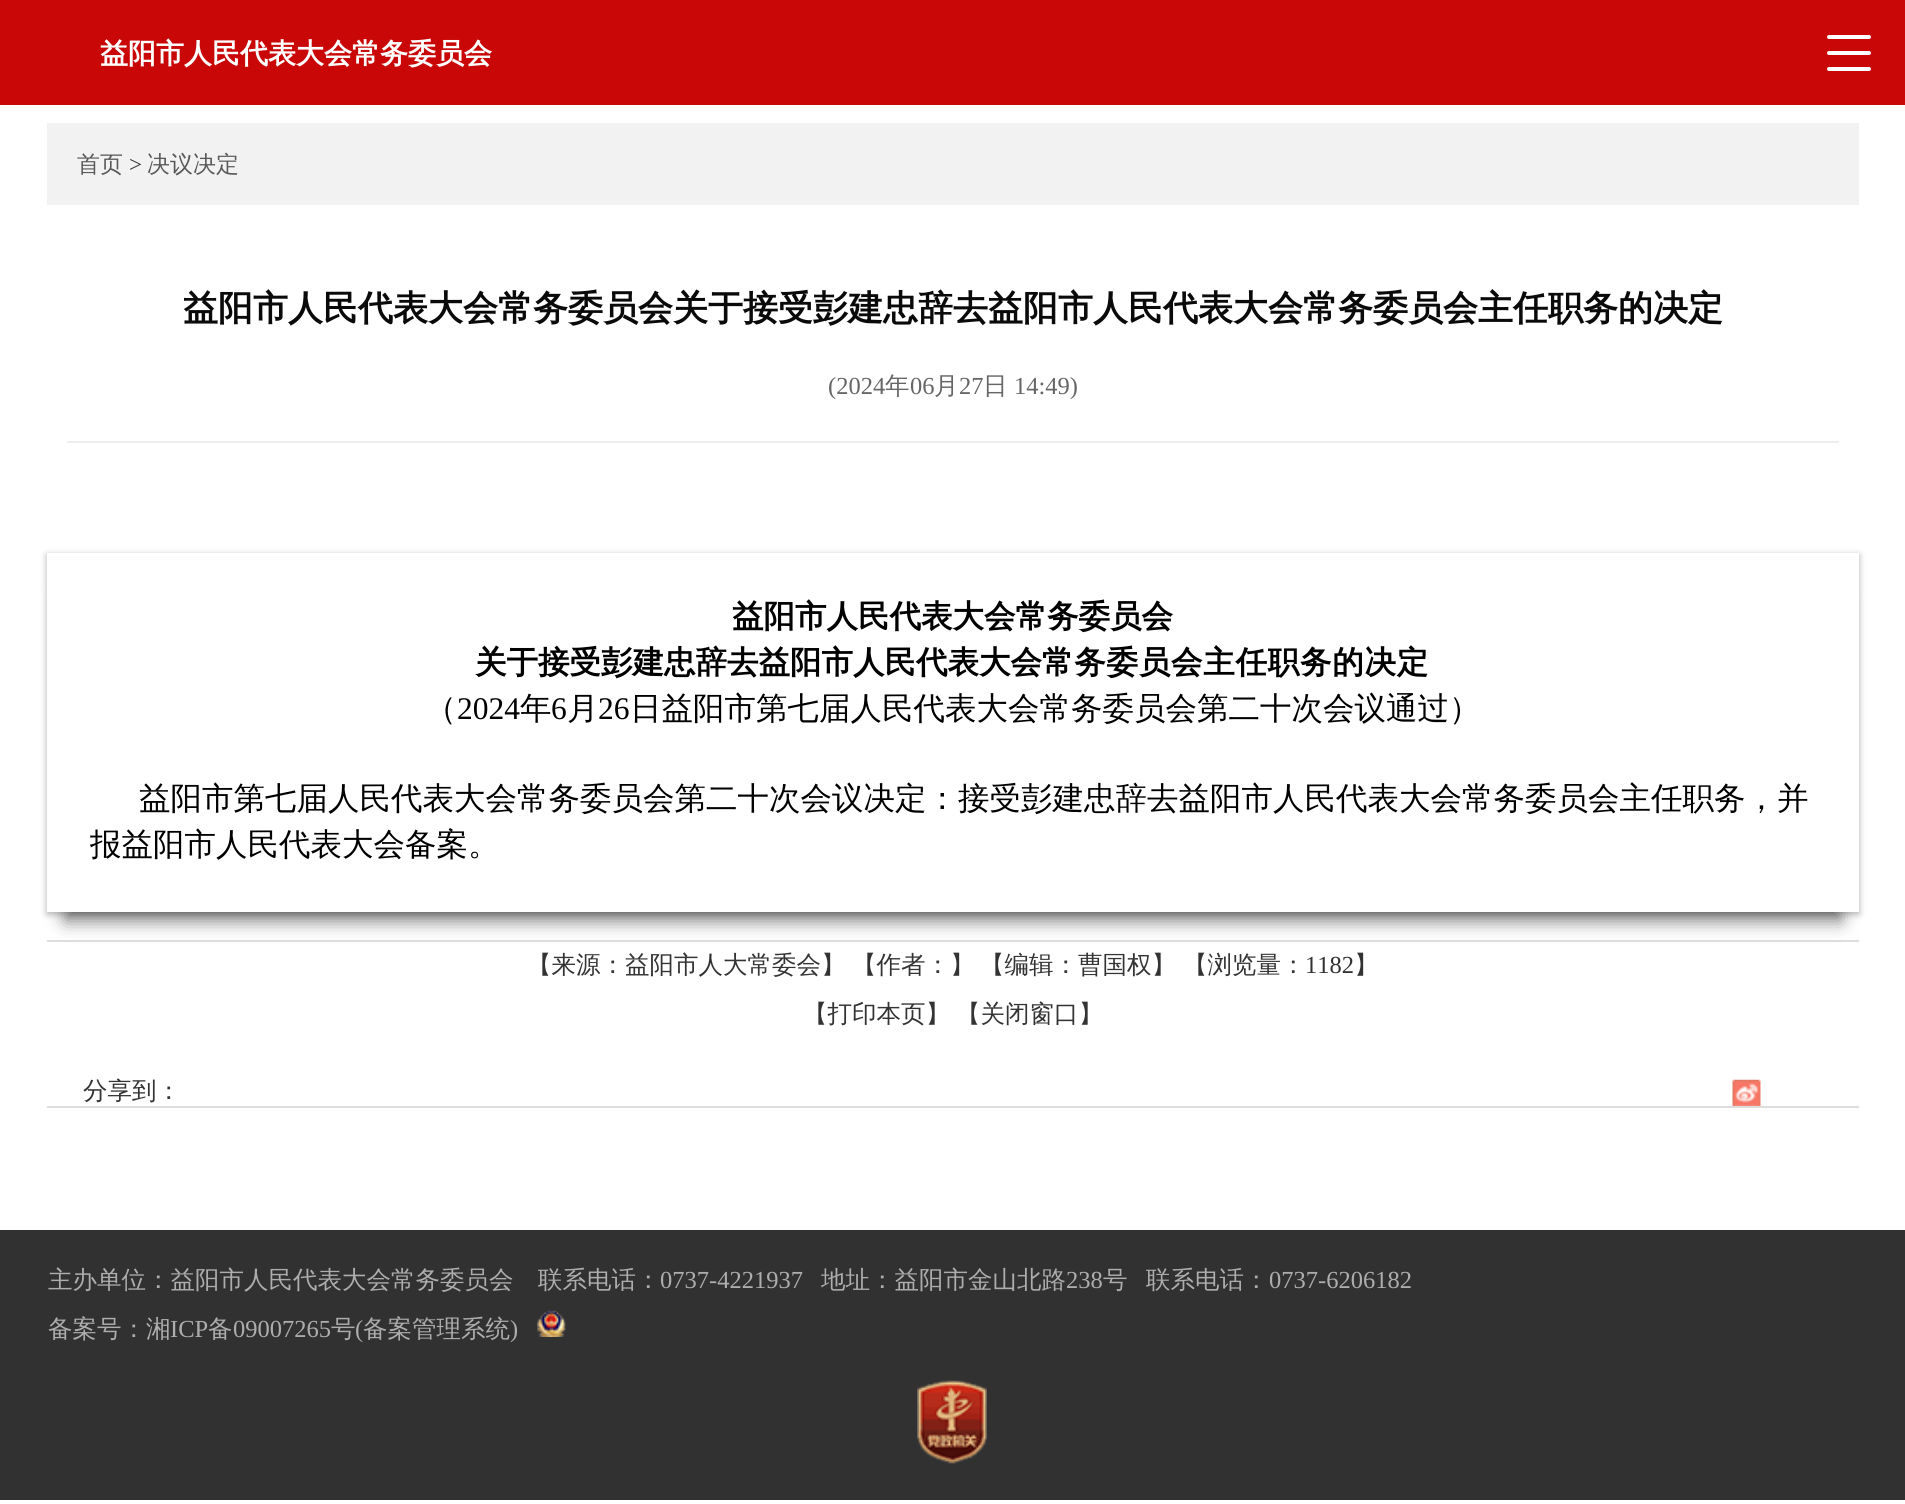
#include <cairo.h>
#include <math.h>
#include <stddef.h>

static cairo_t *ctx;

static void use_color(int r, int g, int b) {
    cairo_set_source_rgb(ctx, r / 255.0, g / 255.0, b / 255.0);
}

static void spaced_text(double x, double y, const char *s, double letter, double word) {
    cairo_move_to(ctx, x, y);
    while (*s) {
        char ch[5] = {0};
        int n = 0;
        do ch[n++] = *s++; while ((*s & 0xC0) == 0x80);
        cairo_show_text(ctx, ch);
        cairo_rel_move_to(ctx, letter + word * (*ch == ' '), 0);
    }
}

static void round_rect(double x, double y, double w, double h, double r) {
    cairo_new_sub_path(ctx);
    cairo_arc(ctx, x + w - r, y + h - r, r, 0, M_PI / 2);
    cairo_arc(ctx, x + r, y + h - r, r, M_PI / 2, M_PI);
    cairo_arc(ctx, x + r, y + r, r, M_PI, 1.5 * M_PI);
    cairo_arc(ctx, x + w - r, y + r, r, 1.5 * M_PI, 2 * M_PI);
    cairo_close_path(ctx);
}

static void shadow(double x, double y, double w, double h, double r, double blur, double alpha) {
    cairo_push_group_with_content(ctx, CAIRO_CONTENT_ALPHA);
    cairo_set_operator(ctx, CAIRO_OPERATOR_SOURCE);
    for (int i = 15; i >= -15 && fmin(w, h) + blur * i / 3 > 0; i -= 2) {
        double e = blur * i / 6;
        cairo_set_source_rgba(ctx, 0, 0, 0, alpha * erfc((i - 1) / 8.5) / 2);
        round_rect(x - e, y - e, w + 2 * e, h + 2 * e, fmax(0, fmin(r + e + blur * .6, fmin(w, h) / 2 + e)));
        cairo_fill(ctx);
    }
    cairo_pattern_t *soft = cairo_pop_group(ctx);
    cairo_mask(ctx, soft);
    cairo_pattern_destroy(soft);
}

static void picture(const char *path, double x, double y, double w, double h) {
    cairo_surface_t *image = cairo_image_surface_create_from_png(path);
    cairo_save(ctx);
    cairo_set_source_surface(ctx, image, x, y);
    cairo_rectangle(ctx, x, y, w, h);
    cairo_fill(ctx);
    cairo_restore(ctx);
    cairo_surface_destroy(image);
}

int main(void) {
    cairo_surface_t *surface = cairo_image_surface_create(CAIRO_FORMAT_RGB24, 1905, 1504);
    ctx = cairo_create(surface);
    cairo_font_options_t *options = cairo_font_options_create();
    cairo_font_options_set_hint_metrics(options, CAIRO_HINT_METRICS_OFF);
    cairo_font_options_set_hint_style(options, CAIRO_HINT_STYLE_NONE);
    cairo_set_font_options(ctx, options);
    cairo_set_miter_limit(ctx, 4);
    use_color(255, 255, 255);
    cairo_paint(ctx);
    use_color(201, 7, 7);
    cairo_rectangle(ctx, 0, 0, 1905, 105);
    cairo_fill(ctx);
    cairo_select_font_face(ctx, "WenQuanYi Zen Hei", CAIRO_FONT_SLANT_NORMAL, CAIRO_FONT_WEIGHT_BOLD);
    cairo_set_font_size(ctx, 28);
    use_color(255, 255, 255);
    cairo_move_to(ctx, 100, 63);
    cairo_show_text(ctx, "益阳市人民代表大会常务委员会");
    round_rect(1827, 51, 44, 4, 2);
    cairo_fill(ctx);
    round_rect(1827, 35, 44, 4, 2);
    cairo_fill(ctx);
    round_rect(1827, 67, 44, 4, 2);
    cairo_fill(ctx);
    use_color(242, 242, 242);
    cairo_rectangle(ctx, 47, 123, 1812, 82);
    cairo_fill(ctx);
    cairo_select_font_face(ctx, "WenQuanYi Zen Hei Medium", CAIRO_FONT_SLANT_NORMAL, CAIRO_FONT_WEIGHT_NORMAL);
    cairo_set_font_size(ctx, 23);
    use_color(89, 89, 89);
    cairo_move_to(ctx, 77, 172);
    cairo_show_text(ctx, "首页");
    cairo_select_font_face(ctx, "Liberation Serif", CAIRO_FONT_SLANT_NORMAL, CAIRO_FONT_WEIGHT_NORMAL);
    use_color(51, 51, 51);
    cairo_move_to(ctx, 129, 172);
    cairo_show_text(ctx, ">");
    cairo_select_font_face(ctx, "WenQuanYi Zen Hei Medium", CAIRO_FONT_SLANT_NORMAL, CAIRO_FONT_WEIGHT_NORMAL);
    use_color(89, 89, 89);
    cairo_move_to(ctx, 147, 172);
    cairo_show_text(ctx, "决议决定");
    use_color(238, 238, 238);
    cairo_rectangle(ctx, 67, 441, 1772, 2);
    cairo_fill(ctx);
    cairo_select_font_face(ctx, "WenQuanYi Zen Hei", CAIRO_FONT_SLANT_NORMAL, CAIRO_FONT_WEIGHT_BOLD);
    cairo_set_font_size(ctx, 35);
    use_color(10, 10, 10);
    cairo_move_to(ctx, 183, 320);
    cairo_show_text(ctx, "益阳市人民代表大会常务委员会关于接受彭建忠辞去益阳市人民代表大会常务委员会主任职务的决定");
    cairo_select_font_face(ctx, "Liberation Serif", CAIRO_FONT_SLANT_NORMAL, CAIRO_FONT_WEIGHT_NORMAL);
    cairo_set_font_size(ctx, 24.5);
    use_color(102, 102, 102);
    cairo_move_to(ctx, 828, 394);
    cairo_show_text(ctx, "(2024");
    cairo_select_font_face(ctx, "WenQuanYi Zen Hei Medium", CAIRO_FONT_SLANT_NORMAL, CAIRO_FONT_WEIGHT_NORMAL);
    cairo_move_to(ctx, 885, 394);
    cairo_show_text(ctx, "年");
    cairo_select_font_face(ctx, "Liberation Serif", CAIRO_FONT_SLANT_NORMAL, CAIRO_FONT_WEIGHT_NORMAL);
    cairo_move_to(ctx, 910, 394);
    cairo_show_text(ctx, "06");
    cairo_select_font_face(ctx, "WenQuanYi Zen Hei Medium", CAIRO_FONT_SLANT_NORMAL, CAIRO_FONT_WEIGHT_NORMAL);
    cairo_move_to(ctx, 934, 394);
    cairo_show_text(ctx, "月");
    cairo_select_font_face(ctx, "Liberation Serif", CAIRO_FONT_SLANT_NORMAL, CAIRO_FONT_WEIGHT_NORMAL);
    cairo_move_to(ctx, 959, 394);
    cairo_show_text(ctx, "27");
    cairo_select_font_face(ctx, "WenQuanYi Zen Hei Medium", CAIRO_FONT_SLANT_NORMAL, CAIRO_FONT_WEIGHT_NORMAL);
    cairo_move_to(ctx, 983, 394);
    cairo_show_text(ctx, "日");
    cairo_select_font_face(ctx, "Liberation Serif", CAIRO_FONT_SLANT_NORMAL, CAIRO_FONT_WEIGHT_NORMAL);
    cairo_move_to(ctx, 1014, 394);
    cairo_show_text(ctx, "14:49)");
    cairo_save(ctx);
    cairo_set_fill_rule(ctx, CAIRO_FILL_RULE_EVEN_ODD);
    cairo_new_path(ctx);
    cairo_move_to(ctx, 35, 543);
    cairo_line_to(ctx, 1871, 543);
    cairo_line_to(ctx, 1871, 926);
    cairo_line_to(ctx, 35, 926);
    cairo_close_path(ctx);
    cairo_move_to(ctx, 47, 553);
    cairo_line_to(ctx, 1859, 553);
    cairo_line_to(ctx, 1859, 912);
    cairo_line_to(ctx, 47, 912);
    cairo_close_path(ctx);
    cairo_clip(ctx);
    use_color(0, 0, 0);
    shadow(47, 555, 1812, 359, 0, 3.5, 0.3);
    cairo_restore(ctx);
    cairo_save(ctx);
    cairo_set_fill_rule(ctx, CAIRO_FILL_RULE_EVEN_ODD);
    cairo_new_path(ctx);
    cairo_move_to(ctx, 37, 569);
    cairo_line_to(ctx, 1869, 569);
    cairo_line_to(ctx, 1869, 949);
    cairo_line_to(ctx, 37, 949);
    cairo_close_path(ctx);
    cairo_move_to(ctx, 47, 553);
    cairo_line_to(ctx, 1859, 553);
    cairo_line_to(ctx, 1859, 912);
    cairo_line_to(ctx, 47, 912);
    cairo_close_path(ctx);
    cairo_clip(ctx);
    use_color(0, 0, 0);
    shadow(65, 597, 1776, 324, 0, 9, 0.5);
    cairo_restore(ctx);
    cairo_select_font_face(ctx, "WenQuanYi Zen Hei", CAIRO_FONT_SLANT_NORMAL, CAIRO_FONT_WEIGHT_BOLD);
    cairo_set_font_size(ctx, 31.5);
    use_color(0, 0, 0);
    cairo_move_to(ctx, 732, 627);
    cairo_show_text(ctx, "益阳市人民代表大会常务委员会");
    cairo_move_to(ctx, 475, 673);
    cairo_show_text(ctx, "关于接受彭建忠辞去益阳市人民代表大会");
    spaced_text(1042, 673, "常务委员会主任职务的决定", 0.75, 0);
    cairo_select_font_face(ctx, "WenQuanYi Zen Hei Medium", CAIRO_FONT_SLANT_NORMAL, CAIRO_FONT_WEIGHT_NORMAL);
    cairo_move_to(ctx, 425, 719);
    cairo_show_text(ctx, "（");
    cairo_select_font_face(ctx, "Liberation Serif", CAIRO_FONT_SLANT_NORMAL, CAIRO_FONT_WEIGHT_NORMAL);
    cairo_move_to(ctx, 457, 719);
    cairo_show_text(ctx, "2024");
    cairo_select_font_face(ctx, "WenQuanYi Zen Hei Medium", CAIRO_FONT_SLANT_NORMAL, CAIRO_FONT_WEIGHT_NORMAL);
    cairo_move_to(ctx, 520, 719);
    cairo_show_text(ctx, "年");
    cairo_select_font_face(ctx, "Liberation Serif", CAIRO_FONT_SLANT_NORMAL, CAIRO_FONT_WEIGHT_NORMAL);
    cairo_move_to(ctx, 551, 719);
    cairo_show_text(ctx, "6");
    cairo_select_font_face(ctx, "WenQuanYi Zen Hei Medium", CAIRO_FONT_SLANT_NORMAL, CAIRO_FONT_WEIGHT_NORMAL);
    cairo_move_to(ctx, 567, 719);
    cairo_show_text(ctx, "月");
    cairo_select_font_face(ctx, "Liberation Serif", CAIRO_FONT_SLANT_NORMAL, CAIRO_FONT_WEIGHT_NORMAL);
    cairo_move_to(ctx, 598, 719);
    cairo_show_text(ctx, "26");
    cairo_select_font_face(ctx, "WenQuanYi Zen Hei Medium", CAIRO_FONT_SLANT_NORMAL, CAIRO_FONT_WEIGHT_NORMAL);
    cairo_move_to(ctx, 630, 719);
    cairo_show_text(ctx, "日益阳市第七届人民代表大会常务委员会第二十次会议通过）");
    cairo_move_to(ctx, 139, 809);
    cairo_show_text(ctx, "益阳市第七届人民代表大会常务委员会第二十次会议决定：接受彭建忠辞去益阳市人民代表大会常务委员会主任职务，并");
    cairo_move_to(ctx, 90, 855);
    cairo_show_text(ctx, "报益阳市人民代表大会备案。");
    use_color(221, 221, 221);
    cairo_rectangle(ctx, 47, 940, 1812, 2);
    cairo_fill(ctx);
    cairo_rectangle(ctx, 47, 1106, 1812, 2);
    cairo_fill(ctx);
    cairo_set_font_size(ctx, 24.5);
    use_color(51, 51, 51);
    cairo_move_to(ctx, 527, 973);
    cairo_show_text(ctx, "【来源：益阳市人大常委会】");
    cairo_move_to(ctx, 852, 973);
    cairo_show_text(ctx, "【作者：】");
    cairo_move_to(ctx, 980, 973);
    cairo_show_text(ctx, "【编辑：曹国权】");
    cairo_move_to(ctx, 1183, 973);
    cairo_show_text(ctx, "【浏览量：");
    cairo_select_font_face(ctx, "Liberation Serif", CAIRO_FONT_SLANT_NORMAL, CAIRO_FONT_WEIGHT_NORMAL);
    cairo_move_to(ctx, 1305, 973);
    cairo_show_text(ctx, "1182");
    cairo_select_font_face(ctx, "WenQuanYi Zen Hei Medium", CAIRO_FONT_SLANT_NORMAL, CAIRO_FONT_WEIGHT_NORMAL);
    cairo_move_to(ctx, 1354, 973);
    cairo_show_text(ctx, "】");
    cairo_move_to(ctx, 803, 1022);
    cairo_show_text(ctx, "【打印本页】");
    cairo_move_to(ctx, 956, 1022);
    cairo_show_text(ctx, "【关闭窗口】");
    cairo_move_to(ctx, 83, 1099);
    cairo_show_text(ctx, "分享到：");
    picture("img1.png", 1732, 1079, 29, 27);
    use_color(49, 49, 49);
    cairo_rectangle(ctx, 0, 1230, 1905, 270);
    cairo_fill(ctx);
    use_color(173, 173, 173);
    cairo_move_to(ctx, 48, 1288);
    cairo_show_text(ctx, "主办单位：益阳市人民代表大会常务委员会");
    cairo_move_to(ctx, 538, 1288);
    cairo_show_text(ctx, "联系电话：");
    cairo_select_font_face(ctx, "Liberation Serif", CAIRO_FONT_SLANT_NORMAL, CAIRO_FONT_WEIGHT_NORMAL);
    cairo_move_to(ctx, 660, 1288);
    cairo_show_text(ctx, "0737-4221937");
    cairo_select_font_face(ctx, "WenQuanYi Zen Hei Medium", CAIRO_FONT_SLANT_NORMAL, CAIRO_FONT_WEIGHT_NORMAL);
    cairo_move_to(ctx, 821, 1288);
    cairo_show_text(ctx, "地址：益阳市金山北路");
    cairo_select_font_face(ctx, "Liberation Serif", CAIRO_FONT_SLANT_NORMAL, CAIRO_FONT_WEIGHT_NORMAL);
    cairo_move_to(ctx, 1066, 1288);
    cairo_show_text(ctx, "238");
    cairo_select_font_face(ctx, "WenQuanYi Zen Hei Medium", CAIRO_FONT_SLANT_NORMAL, CAIRO_FONT_WEIGHT_NORMAL);
    cairo_move_to(ctx, 1103, 1288);
    cairo_show_text(ctx, "号");
    cairo_move_to(ctx, 1146, 1288);
    cairo_show_text(ctx, "联系电话：");
    cairo_select_font_face(ctx, "Liberation Serif", CAIRO_FONT_SLANT_NORMAL, CAIRO_FONT_WEIGHT_NORMAL);
    cairo_move_to(ctx, 1269, 1288);
    cairo_show_text(ctx, "0737-6206182");
    cairo_select_font_face(ctx, "WenQuanYi Zen Hei Medium", CAIRO_FONT_SLANT_NORMAL, CAIRO_FONT_WEIGHT_NORMAL);
    cairo_move_to(ctx, 48, 1337);
    cairo_show_text(ctx, "备案号：湘");
    cairo_select_font_face(ctx, "Liberation Serif", CAIRO_FONT_SLANT_NORMAL, CAIRO_FONT_WEIGHT_NORMAL);
    cairo_move_to(ctx, 170, 1337);
    cairo_show_text(ctx, "ICP");
    cairo_select_font_face(ctx, "WenQuanYi Zen Hei Medium", CAIRO_FONT_SLANT_NORMAL, CAIRO_FONT_WEIGHT_NORMAL);
    cairo_move_to(ctx, 208, 1337);
    cairo_show_text(ctx, "备");
    cairo_select_font_face(ctx, "Liberation Serif", CAIRO_FONT_SLANT_NORMAL, CAIRO_FONT_WEIGHT_NORMAL);
    cairo_move_to(ctx, 233, 1337);
    cairo_show_text(ctx, "09007265");
    cairo_select_font_face(ctx, "WenQuanYi Zen Hei Medium", CAIRO_FONT_SLANT_NORMAL, CAIRO_FONT_WEIGHT_NORMAL);
    cairo_move_to(ctx, 331, 1337);
    cairo_show_text(ctx, "号");
    cairo_select_font_face(ctx, "Liberation Serif", CAIRO_FONT_SLANT_NORMAL, CAIRO_FONT_WEIGHT_NORMAL);
    cairo_move_to(ctx, 355, 1337);
    cairo_show_text(ctx, "(");
    cairo_select_font_face(ctx, "WenQuanYi Zen Hei Medium", CAIRO_FONT_SLANT_NORMAL, CAIRO_FONT_WEIGHT_NORMAL);
    cairo_move_to(ctx, 363, 1337);
    cairo_show_text(ctx, "备案管理系统");
    cairo_select_font_face(ctx, "Liberation Serif", CAIRO_FONT_SLANT_NORMAL, CAIRO_FONT_WEIGHT_NORMAL);
    cairo_move_to(ctx, 510, 1337);
    cairo_show_text(ctx, ")");
    picture("img2.png", 537, 1310, 29, 27);
    picture("img3.png", 917, 1380, 70, 85);
    cairo_surface_write_to_png(surface, "result.png");
    cairo_font_options_destroy(options);
    cairo_destroy(ctx);
    cairo_surface_destroy(surface);
    return 0;
}
